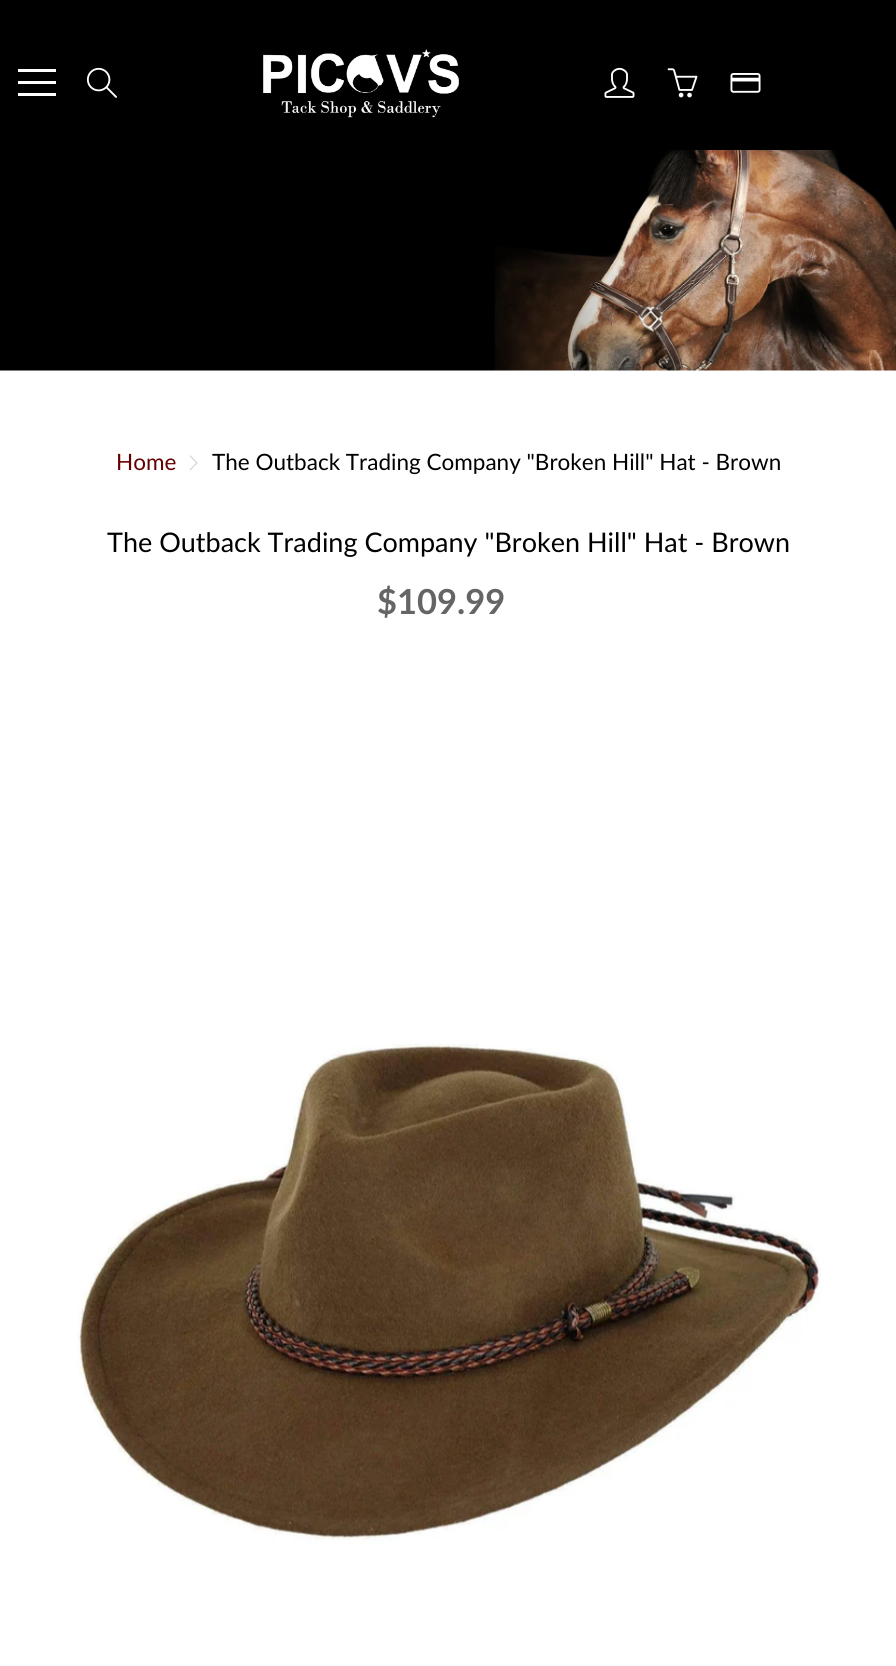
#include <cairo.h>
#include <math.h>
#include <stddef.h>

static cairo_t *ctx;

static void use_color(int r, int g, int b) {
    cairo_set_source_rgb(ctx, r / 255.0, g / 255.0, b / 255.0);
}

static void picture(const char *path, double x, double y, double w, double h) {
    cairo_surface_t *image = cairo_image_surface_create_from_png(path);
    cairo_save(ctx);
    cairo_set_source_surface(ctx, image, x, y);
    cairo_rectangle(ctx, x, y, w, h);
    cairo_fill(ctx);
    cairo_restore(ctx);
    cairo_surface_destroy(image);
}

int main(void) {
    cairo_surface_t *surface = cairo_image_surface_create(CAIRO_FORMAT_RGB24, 896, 1666);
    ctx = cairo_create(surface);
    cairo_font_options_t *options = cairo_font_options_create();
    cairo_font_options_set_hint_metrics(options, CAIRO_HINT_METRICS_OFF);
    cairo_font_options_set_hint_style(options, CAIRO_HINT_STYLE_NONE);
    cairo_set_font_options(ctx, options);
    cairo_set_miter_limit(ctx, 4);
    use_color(255, 255, 255);
    cairo_paint(ctx);
    use_color(0, 0, 0);
    cairo_rectangle(ctx, 0, 0, 896, 150);
    cairo_fill(ctx);
    use_color(255, 255, 255);
    cairo_rectangle(ctx, 18, 81, 38, 3);
    cairo_fill(ctx);
    cairo_rectangle(ctx, 18, 69, 38, 3);
    cairo_fill(ctx);
    cairo_rectangle(ctx, 18, 93, 38, 3);
    cairo_fill(ctx);
    picture("img1.png", 86, 67, 31, 31);
    picture("img2.png", 263, 49, 196, 69);
    picture("img3.png", 604, 67, 31, 31);
    picture("img4.png", 667, 68, 31, 30);
    picture("img5.png", 730, 73, 31, 20);
    picture("img6.png", 0, 150, 896, 221);
    cairo_select_font_face(ctx, "Lato", CAIRO_FONT_SLANT_NORMAL, CAIRO_FONT_WEIGHT_NORMAL);
    cairo_set_font_size(ctx, 22.5);
    use_color(102, 0, 0);
    cairo_move_to(ctx, 116, 470);
    cairo_show_text(ctx, "Home");
    picture("img7.png", 189, 455, 9, 16);
    use_color(0, 0, 0);
    cairo_move_to(ctx, 212, 470);
    cairo_show_text(ctx, "The Outback Trading Company \"Broken Hill\" Hat - Brown");
    cairo_set_font_size(ctx, 27);
    cairo_move_to(ctx, 107, 552);
    cairo_show_text(ctx, "The Outback Trading Company \"Broken Hill\" Hat - Brown");
    cairo_select_font_face(ctx, "Lato", CAIRO_FONT_SLANT_NORMAL, CAIRO_FONT_WEIGHT_BOLD);
    cairo_set_font_size(ctx, 34.5);
    use_color(102, 101, 101);
    cairo_move_to(ctx, 377, 614);
    cairo_show_text(ctx, "$109.99");
    picture("img8.png", 77, 1043, 744, 502);
    cairo_surface_write_to_png(surface, "result.png");
    cairo_font_options_destroy(options);
    cairo_destroy(ctx);
    cairo_surface_destroy(surface);
    return 0;
}
